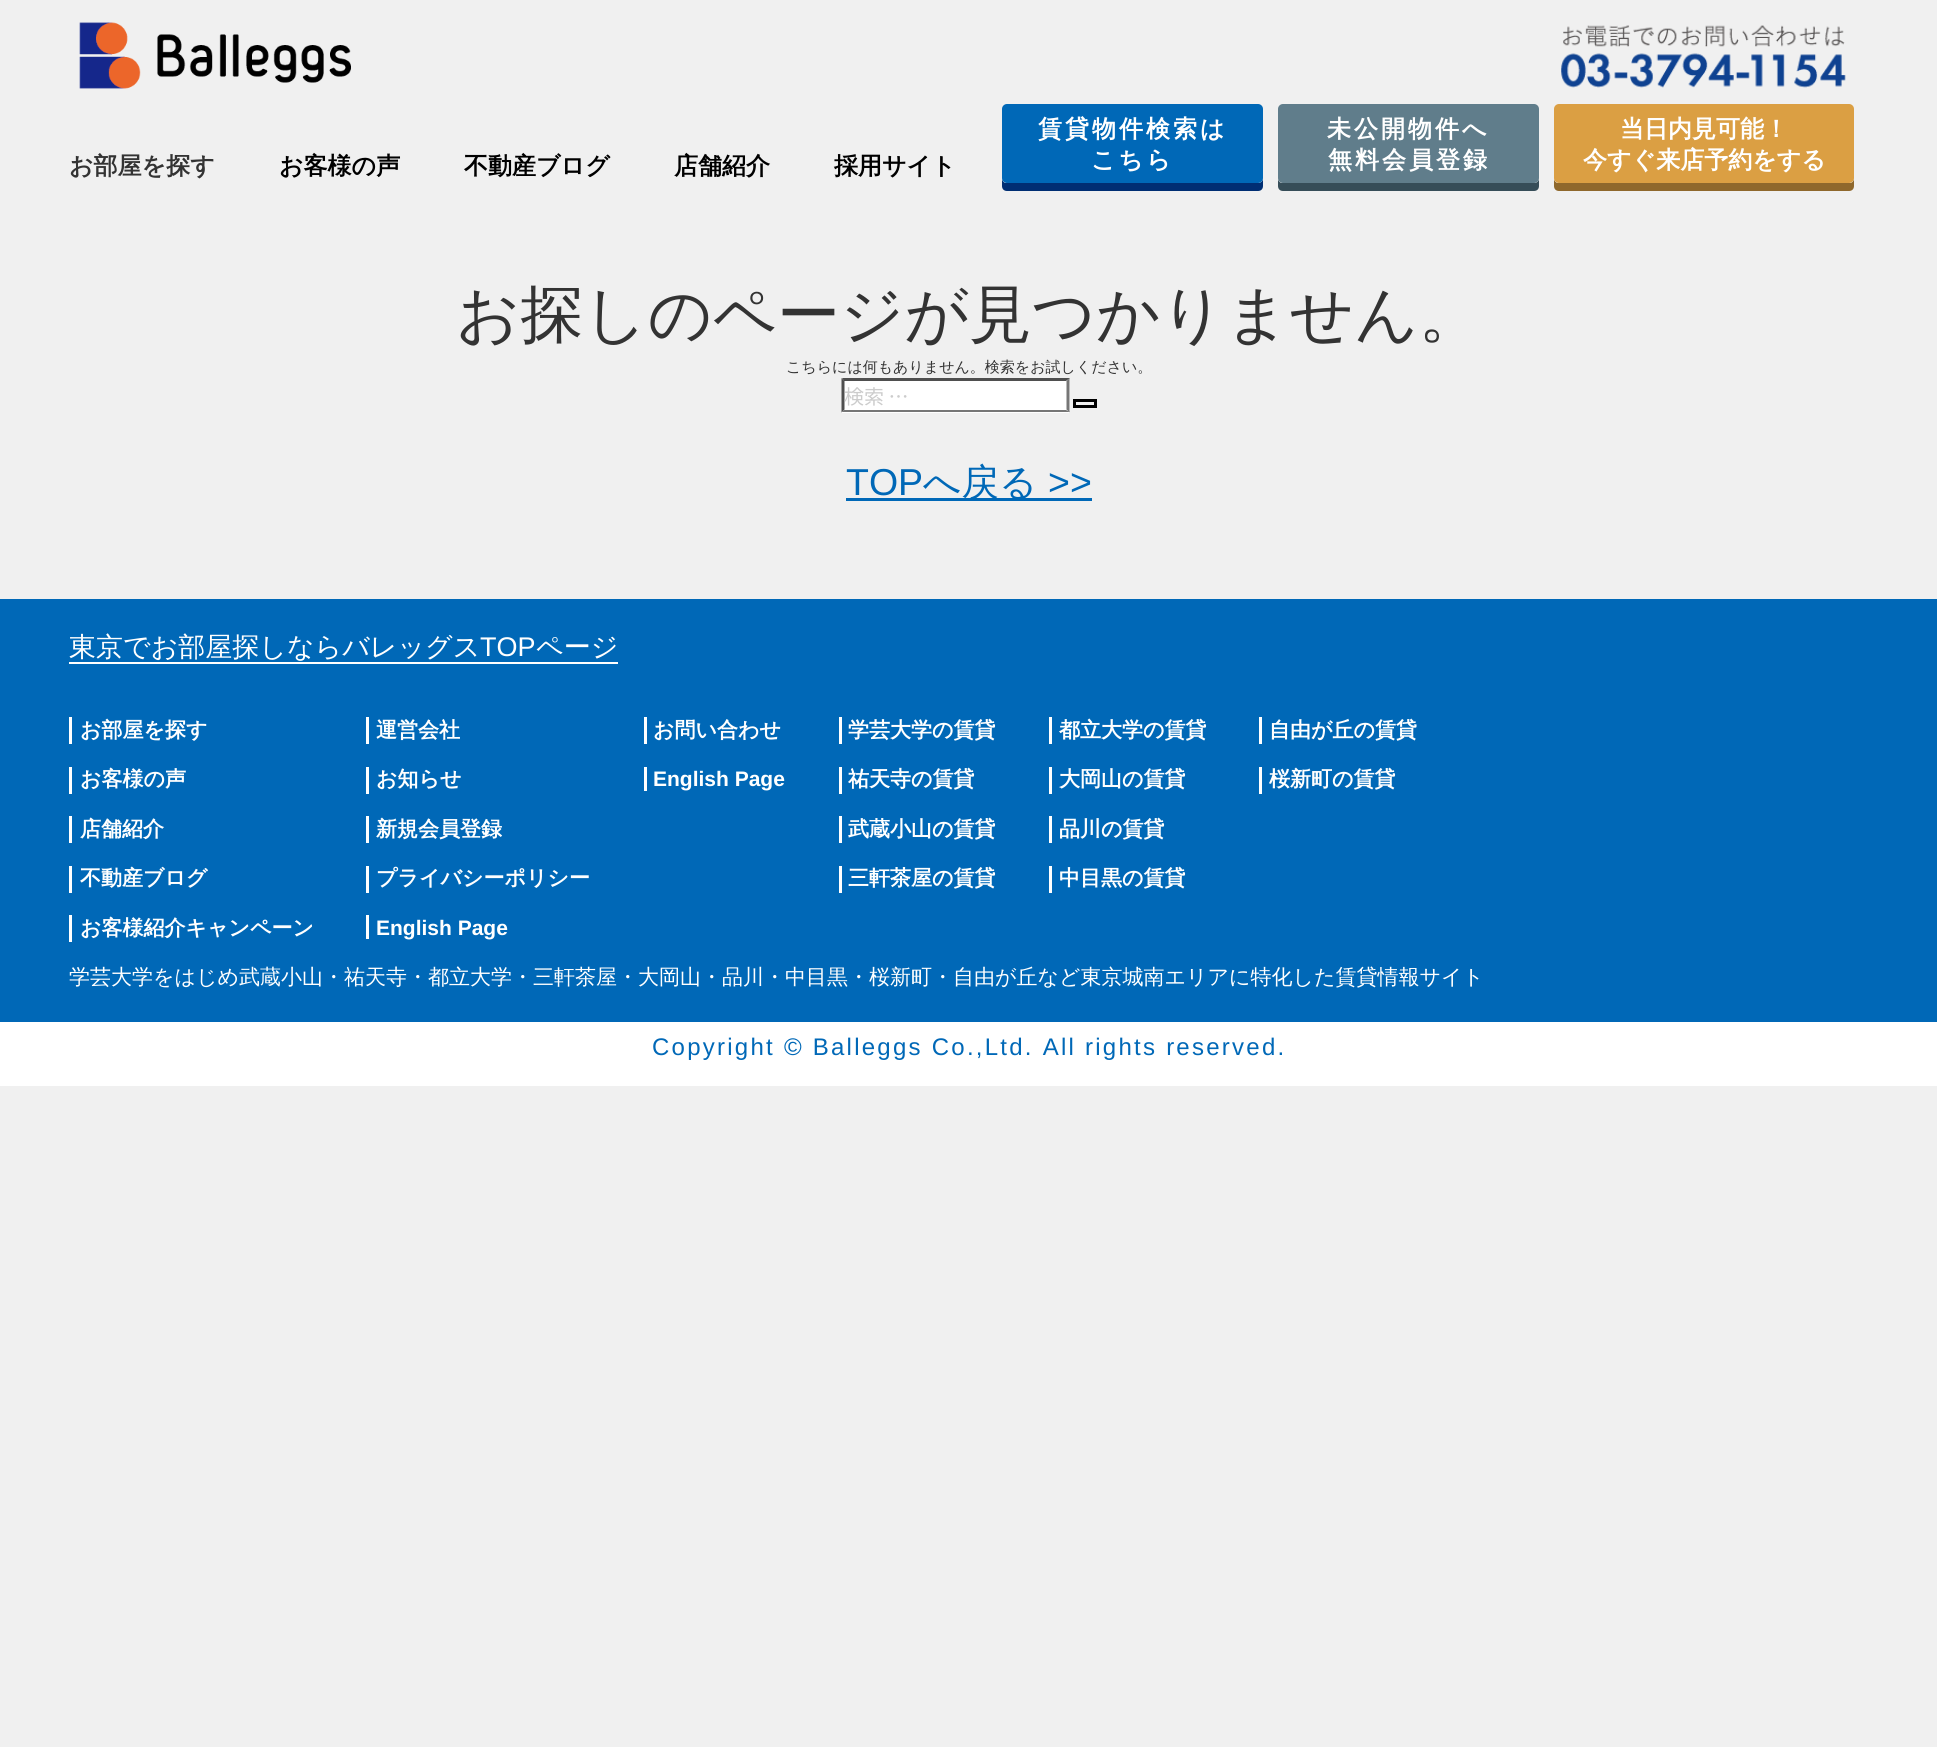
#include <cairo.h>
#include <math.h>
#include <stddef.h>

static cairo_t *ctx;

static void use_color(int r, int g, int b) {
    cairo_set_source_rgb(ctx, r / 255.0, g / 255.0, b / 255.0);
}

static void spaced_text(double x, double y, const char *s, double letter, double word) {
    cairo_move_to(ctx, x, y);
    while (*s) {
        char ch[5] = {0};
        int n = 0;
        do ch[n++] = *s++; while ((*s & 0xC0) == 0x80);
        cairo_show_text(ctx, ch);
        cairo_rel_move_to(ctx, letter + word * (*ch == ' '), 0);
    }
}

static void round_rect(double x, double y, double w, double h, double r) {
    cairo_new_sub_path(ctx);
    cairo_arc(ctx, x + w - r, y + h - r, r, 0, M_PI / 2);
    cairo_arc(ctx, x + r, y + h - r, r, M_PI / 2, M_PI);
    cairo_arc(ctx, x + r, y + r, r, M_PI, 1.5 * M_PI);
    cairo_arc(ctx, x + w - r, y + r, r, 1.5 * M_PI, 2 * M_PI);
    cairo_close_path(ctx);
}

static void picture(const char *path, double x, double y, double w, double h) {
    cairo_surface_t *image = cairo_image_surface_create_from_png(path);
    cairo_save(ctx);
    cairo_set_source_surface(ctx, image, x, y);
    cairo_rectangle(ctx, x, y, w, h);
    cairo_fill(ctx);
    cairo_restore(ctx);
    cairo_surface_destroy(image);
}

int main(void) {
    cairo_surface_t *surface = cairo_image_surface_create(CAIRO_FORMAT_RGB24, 1937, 1747);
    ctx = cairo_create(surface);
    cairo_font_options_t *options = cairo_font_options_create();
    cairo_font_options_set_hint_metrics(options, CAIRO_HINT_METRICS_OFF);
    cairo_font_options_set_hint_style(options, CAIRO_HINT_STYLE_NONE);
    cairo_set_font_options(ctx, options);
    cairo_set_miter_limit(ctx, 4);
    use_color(240, 240, 240);
    cairo_paint(ctx);
    picture("img1.png", 79, 22, 272, 67);
    picture("img2.png", 1561, 25, 285, 63);
    cairo_select_font_face(ctx, "WenQuanYi Zen Hei", CAIRO_FONT_SLANT_NORMAL, CAIRO_FONT_WEIGHT_BOLD);
    cairo_set_font_size(ctx, 24);
    use_color(51, 51, 51);
    cairo_move_to(ctx, 69, 174);
    cairo_show_text(ctx, "お部屋を探す");
    use_color(0, 0, 0);
    cairo_move_to(ctx, 279, 174);
    cairo_show_text(ctx, "お客様の声");
    cairo_move_to(ctx, 464, 174);
    cairo_show_text(ctx, "不動産ブログ");
    cairo_move_to(ctx, 674, 174);
    cairo_show_text(ctx, "店舗紹介");
    cairo_move_to(ctx, 834, 174);
    cairo_show_text(ctx, "採用サイト");
    use_color(0, 46, 115);
    cairo_new_path(ctx);
    cairo_move_to(ctx, 1002, 178);
    cairo_line_to(ctx, 1002, 186);
    cairo_curve_to(ctx, 1002, 189, 1004, 191, 1007, 191);
    cairo_line_to(ctx, 1258, 191);
    cairo_curve_to(ctx, 1261, 191, 1263, 189, 1263, 186);
    cairo_line_to(ctx, 1263, 178);
    cairo_curve_to(ctx, 1263, 181, 1261, 183, 1258, 183);
    cairo_line_to(ctx, 1006, 183);
    cairo_curve_to(ctx, 1004, 183, 1002, 181, 1002, 178);
    cairo_close_path(ctx);
    cairo_fill(ctx);
    use_color(0, 104, 183);
    round_rect(1002, 104, 261, 79, 5);
    cairo_fill(ctx);
    use_color(255, 255, 255);
    spaced_text(1038, 137, "賃貸物件検索は", 3, 0);
    spaced_text(1091, 168, "こちら", 3, 0);
    use_color(54, 77, 88);
    cairo_new_path(ctx);
    cairo_move_to(ctx, 1278, 178);
    cairo_line_to(ctx, 1278, 186);
    cairo_curve_to(ctx, 1278, 189, 1280, 191, 1283, 191);
    cairo_line_to(ctx, 1534, 191);
    cairo_curve_to(ctx, 1537, 191, 1539, 189, 1539, 186);
    cairo_line_to(ctx, 1539, 178);
    cairo_curve_to(ctx, 1539, 181, 1537, 183, 1534, 183);
    cairo_line_to(ctx, 1282, 183);
    cairo_curve_to(ctx, 1280, 183, 1278, 181, 1278, 178);
    cairo_close_path(ctx);
    cairo_fill(ctx);
    use_color(96, 125, 139);
    round_rect(1278, 104, 261, 79, 5);
    cairo_fill(ctx);
    use_color(255, 255, 255);
    spaced_text(1327, 137, "未公開物件へ", 3, 0);
    spaced_text(1328, 168, "無料会員登録", 3, 0);
    use_color(143, 104, 44);
    cairo_new_path(ctx);
    cairo_move_to(ctx, 1554, 178);
    cairo_line_to(ctx, 1554, 186);
    cairo_curve_to(ctx, 1554, 189, 1556, 191, 1559, 191);
    cairo_line_to(ctx, 1849, 191);
    cairo_curve_to(ctx, 1852, 191, 1854, 189, 1854, 186);
    cairo_line_to(ctx, 1854, 178);
    cairo_curve_to(ctx, 1854, 181, 1852, 183, 1850, 183);
    cairo_line_to(ctx, 1558, 183);
    cairo_curve_to(ctx, 1556, 183, 1554, 181, 1554, 178);
    cairo_close_path(ctx);
    cairo_fill(ctx);
    use_color(219, 159, 67);
    round_rect(1554, 104, 300, 79, 5);
    cairo_fill(ctx);
    use_color(255, 255, 255);
    cairo_move_to(ctx, 1620, 137);
    cairo_show_text(ctx, "当日内見可能！");
    cairo_move_to(ctx, 1583, 168);
    cairo_show_text(ctx, "今すぐ来店予約をする");
    cairo_select_font_face(ctx, "WenQuanYi Zen Hei Medium", CAIRO_FONT_SLANT_NORMAL, CAIRO_FONT_WEIGHT_NORMAL);
    cairo_set_font_size(ctx, 63);
    use_color(51, 51, 51);
    cairo_move_to(ctx, 456, 336);
    cairo_show_text(ctx, "お探しのページが見つかりません。");
    cairo_set_font_size(ctx, 15);
    cairo_move_to(ctx, 786, 372);
    cairo_show_text(ctx, "こちらには何もありません。検索をお試しください。");
    use_color(255, 255, 255);
    cairo_rectangle(ctx, 842, 378, 228, 35);
    cairo_fill(ctx);
    use_color(79, 79, 79);
    cairo_new_path(ctx);
    cairo_move_to(ctx, 842, 378);
    cairo_line_to(ctx, 1070, 378);
    cairo_line_to(ctx, 1066, 381);
    cairo_line_to(ctx, 844, 381);
    cairo_close_path(ctx);
    cairo_fill(ctx);
    use_color(118, 118, 118);
    cairo_new_path(ctx);
    cairo_move_to(ctx, 1069.5, 378);
    cairo_line_to(ctx, 1069.5, 412.5);
    cairo_line_to(ctx, 1066.5, 409.5);
    cairo_line_to(ctx, 1066.5, 381);
    cairo_close_path(ctx);
    cairo_fill(ctx);
    cairo_new_path(ctx);
    cairo_move_to(ctx, 1070, 412);
    cairo_line_to(ctx, 842, 412);
    cairo_line_to(ctx, 844, 410);
    cairo_line_to(ctx, 1066, 410);
    cairo_close_path(ctx);
    cairo_fill(ctx);
    use_color(79, 79, 79);
    cairo_new_path(ctx);
    cairo_move_to(ctx, 841.5, 412.5);
    cairo_line_to(ctx, 841.5, 378);
    cairo_line_to(ctx, 844.5, 381);
    cairo_line_to(ctx, 844.5, 409.5);
    cairo_close_path(ctx);
    cairo_fill(ctx);
    cairo_select_font_face(ctx, "Noto Sans JP", CAIRO_FONT_SLANT_NORMAL, CAIRO_FONT_WEIGHT_NORMAL);
    cairo_set_font_size(ctx, 20);
    use_color(204, 204, 204);
    cairo_move_to(ctx, 844, 404);
    cairo_show_text(ctx, "検索 …");
    cairo_rectangle(ctx, 1074.5, 400.5, 21, 6);
    use_color(0, 0, 0);
    cairo_set_line_width(ctx, 3);
    cairo_stroke(ctx);
    cairo_select_font_face(ctx, "Liberation Sans", CAIRO_FONT_SLANT_NORMAL, CAIRO_FONT_WEIGHT_NORMAL);
    cairo_set_font_size(ctx, 37.5);
    use_color(0, 104, 183);
    cairo_move_to(ctx, 846, 495);
    cairo_show_text(ctx, "TOP");
    cairo_rectangle(ctx, 846, 498, 246, 3);
    cairo_fill(ctx);
    cairo_select_font_face(ctx, "WenQuanYi Zen Hei Medium", CAIRO_FONT_SLANT_NORMAL, CAIRO_FONT_WEIGHT_NORMAL);
    cairo_move_to(ctx, 923, 495);
    cairo_show_text(ctx, "へ戻る");
    cairo_select_font_face(ctx, "Liberation Sans", CAIRO_FONT_SLANT_NORMAL, CAIRO_FONT_WEIGHT_NORMAL);
    cairo_move_to(ctx, 1048, 495);
    cairo_show_text(ctx, ">>");
    cairo_rectangle(ctx, 0, 599, 1937, 423);
    cairo_fill(ctx);
    cairo_select_font_face(ctx, "WenQuanYi Zen Hei Medium", CAIRO_FONT_SLANT_NORMAL, CAIRO_FONT_WEIGHT_NORMAL);
    cairo_set_font_size(ctx, 27);
    use_color(255, 255, 255);
    cairo_move_to(ctx, 69, 656);
    cairo_show_text(ctx, "東京でお部屋探しならバレッグス");
    cairo_select_font_face(ctx, "Liberation Sans", CAIRO_FONT_SLANT_NORMAL, CAIRO_FONT_WEIGHT_NORMAL);
    cairo_move_to(ctx, 480, 656);
    cairo_show_text(ctx, "TOP");
    cairo_select_font_face(ctx, "WenQuanYi Zen Hei Medium", CAIRO_FONT_SLANT_NORMAL, CAIRO_FONT_WEIGHT_NORMAL);
    cairo_move_to(ctx, 536, 656);
    cairo_show_text(ctx, "ページ");
    cairo_rectangle(ctx, 69, 662, 549, 2);
    cairo_fill(ctx);
    cairo_rectangle(ctx, 69, 717, 3, 27);
    cairo_fill(ctx);
    cairo_select_font_face(ctx, "WenQuanYi Zen Hei", CAIRO_FONT_SLANT_NORMAL, CAIRO_FONT_WEIGHT_BOLD);
    cairo_set_font_size(ctx, 21);
    cairo_move_to(ctx, 80, 737);
    cairo_show_text(ctx, "お部屋を探す");
    cairo_rectangle(ctx, 69, 767, 3, 27);
    cairo_fill(ctx);
    cairo_move_to(ctx, 80, 786);
    cairo_show_text(ctx, "お客様の声");
    cairo_rectangle(ctx, 69, 816, 3, 27);
    cairo_fill(ctx);
    cairo_move_to(ctx, 80, 836);
    cairo_show_text(ctx, "店舗紹介");
    cairo_rectangle(ctx, 69, 866, 3, 27);
    cairo_fill(ctx);
    cairo_move_to(ctx, 80, 885);
    cairo_show_text(ctx, "不動産ブログ");
    cairo_rectangle(ctx, 69, 915, 3, 27);
    cairo_fill(ctx);
    cairo_move_to(ctx, 80, 935);
    cairo_show_text(ctx, "お客様紹介キャンペーン");
    cairo_rectangle(ctx, 366, 717, 3, 27);
    cairo_fill(ctx);
    cairo_move_to(ctx, 376, 737);
    cairo_show_text(ctx, "運営会社");
    cairo_rectangle(ctx, 366, 767, 3, 27);
    cairo_fill(ctx);
    cairo_move_to(ctx, 376, 786);
    cairo_show_text(ctx, "お知らせ");
    cairo_rectangle(ctx, 366, 816, 3, 27);
    cairo_fill(ctx);
    cairo_move_to(ctx, 376, 836);
    cairo_show_text(ctx, "新規会員登録");
    cairo_rectangle(ctx, 366, 866, 3, 27);
    cairo_fill(ctx);
    cairo_move_to(ctx, 376, 885);
    cairo_show_text(ctx, "プライバシーポリシー");
    cairo_rectangle(ctx, 366, 915, 3, 24);
    cairo_fill(ctx);
    cairo_select_font_face(ctx, "Liberation Sans", CAIRO_FONT_SLANT_NORMAL, CAIRO_FONT_WEIGHT_BOLD);
    cairo_move_to(ctx, 376, 935);
    cairo_show_text(ctx, "English Page");
    cairo_rectangle(ctx, 644, 717, 3, 27);
    cairo_fill(ctx);
    cairo_select_font_face(ctx, "WenQuanYi Zen Hei", CAIRO_FONT_SLANT_NORMAL, CAIRO_FONT_WEIGHT_BOLD);
    cairo_move_to(ctx, 653, 737);
    cairo_show_text(ctx, "お問い合わせ");
    cairo_rectangle(ctx, 644, 767, 3, 24);
    cairo_fill(ctx);
    cairo_select_font_face(ctx, "Liberation Sans", CAIRO_FONT_SLANT_NORMAL, CAIRO_FONT_WEIGHT_BOLD);
    cairo_move_to(ctx, 653, 786);
    cairo_show_text(ctx, "English Page");
    cairo_rectangle(ctx, 839, 717, 3, 27);
    cairo_fill(ctx);
    cairo_select_font_face(ctx, "WenQuanYi Zen Hei", CAIRO_FONT_SLANT_NORMAL, CAIRO_FONT_WEIGHT_BOLD);
    cairo_move_to(ctx, 848, 737);
    cairo_show_text(ctx, "学芸大学の賃貸");
    cairo_rectangle(ctx, 839, 767, 3, 27);
    cairo_fill(ctx);
    cairo_move_to(ctx, 848, 786);
    cairo_show_text(ctx, "祐天寺の賃貸");
    cairo_rectangle(ctx, 839, 816, 3, 27);
    cairo_fill(ctx);
    cairo_move_to(ctx, 848, 836);
    cairo_show_text(ctx, "武蔵小山の賃貸");
    cairo_rectangle(ctx, 839, 866, 3, 27);
    cairo_fill(ctx);
    cairo_move_to(ctx, 848, 885);
    cairo_show_text(ctx, "三軒茶屋の賃貸");
    cairo_rectangle(ctx, 1049, 717, 3, 27);
    cairo_fill(ctx);
    cairo_move_to(ctx, 1059, 737);
    cairo_show_text(ctx, "都立大学の賃貸");
    cairo_rectangle(ctx, 1049, 767, 3, 27);
    cairo_fill(ctx);
    cairo_move_to(ctx, 1059, 786);
    cairo_show_text(ctx, "大岡山の賃貸");
    cairo_rectangle(ctx, 1049, 816, 3, 27);
    cairo_fill(ctx);
    cairo_move_to(ctx, 1059, 836);
    cairo_show_text(ctx, "品川の賃貸");
    cairo_rectangle(ctx, 1049, 866, 3, 27);
    cairo_fill(ctx);
    cairo_move_to(ctx, 1059, 885);
    cairo_show_text(ctx, "中目黒の賃貸");
    cairo_rectangle(ctx, 1259, 717, 3, 27);
    cairo_fill(ctx);
    cairo_move_to(ctx, 1269, 737);
    cairo_show_text(ctx, "自由が丘の賃貸");
    cairo_rectangle(ctx, 1259, 767, 3, 27);
    cairo_fill(ctx);
    cairo_move_to(ctx, 1269, 786);
    cairo_show_text(ctx, "桜新町の賃貸");
    cairo_select_font_face(ctx, "WenQuanYi Zen Hei Medium", CAIRO_FONT_SLANT_NORMAL, CAIRO_FONT_WEIGHT_NORMAL);
    cairo_move_to(ctx, 69, 984);
    cairo_show_text(ctx, "学芸大学をはじめ武蔵小山・祐天寺・都立大学・三軒茶屋・大岡山・品川・中目黒・桜新町・自由が丘など東京城南エリアに特化した賃貸情報サイト");
    cairo_rectangle(ctx, 0, 1022, 1937, 64);
    cairo_fill(ctx);
    cairo_select_font_face(ctx, "Liberation Sans", CAIRO_FONT_SLANT_NORMAL, CAIRO_FONT_WEIGHT_NORMAL);
    cairo_set_font_size(ctx, 24);
    use_color(0, 104, 183);
    spaced_text(652, 1055, "Copyright © Balleggs Co.,Ltd. All rights reserved.", 2.25, 0);
    cairo_surface_write_to_png(surface, "result.png");
    cairo_font_options_destroy(options);
    cairo_destroy(ctx);
    cairo_surface_destroy(surface);
    return 0;
}
